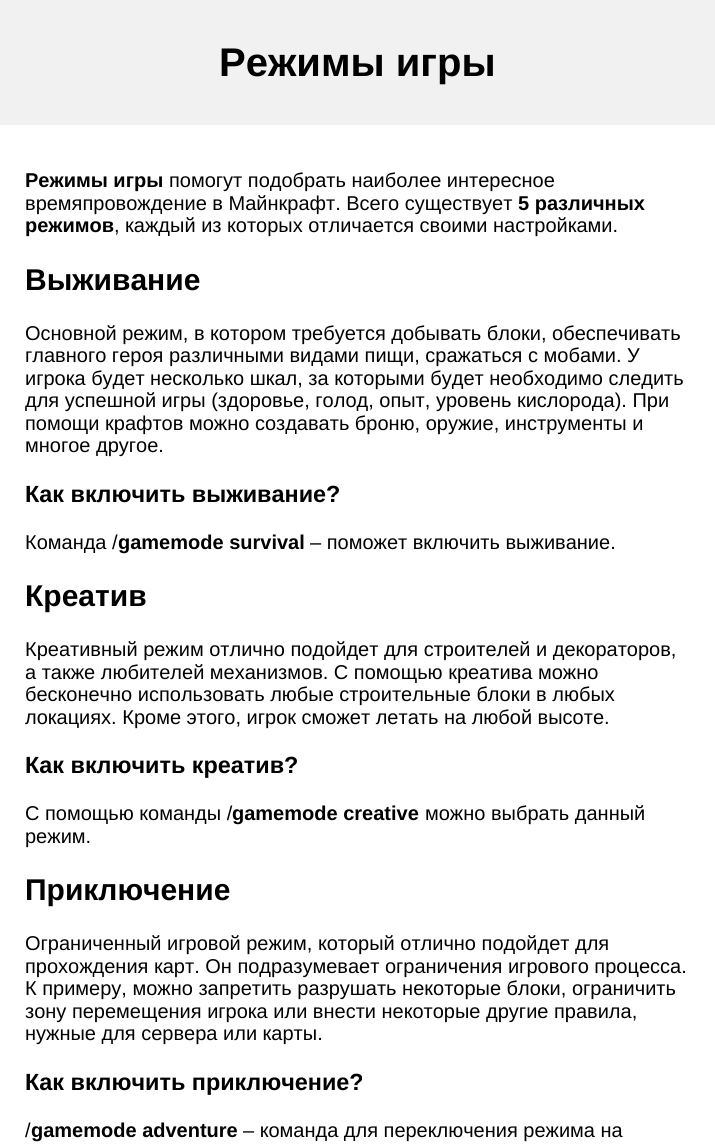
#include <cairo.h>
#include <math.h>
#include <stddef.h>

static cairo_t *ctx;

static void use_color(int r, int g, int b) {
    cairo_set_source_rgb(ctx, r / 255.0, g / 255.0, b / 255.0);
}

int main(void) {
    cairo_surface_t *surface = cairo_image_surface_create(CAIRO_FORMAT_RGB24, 715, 1144);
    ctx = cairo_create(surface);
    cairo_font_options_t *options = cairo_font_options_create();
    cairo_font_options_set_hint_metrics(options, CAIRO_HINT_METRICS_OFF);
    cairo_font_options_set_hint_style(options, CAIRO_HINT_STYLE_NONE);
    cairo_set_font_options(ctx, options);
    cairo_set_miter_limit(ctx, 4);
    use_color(255, 255, 255);
    cairo_paint(ctx);
    use_color(241, 241, 241);
    cairo_rectangle(ctx, 0, 0, 715, 125);
    cairo_fill(ctx);
    cairo_select_font_face(ctx, "Liberation Sans", CAIRO_FONT_SLANT_NORMAL, CAIRO_FONT_WEIGHT_BOLD);
    cairo_set_font_size(ctx, 40);
    use_color(0, 0, 0);
    cairo_move_to(ctx, 219, 76);
    cairo_show_text(ctx, "Режимы игры");
    cairo_set_font_size(ctx, 20);
    cairo_move_to(ctx, 25, 187);
    cairo_show_text(ctx, "Режимы игры");
    cairo_select_font_face(ctx, "Liberation Sans", CAIRO_FONT_SLANT_NORMAL, CAIRO_FONT_WEIGHT_NORMAL);
    cairo_move_to(ctx, 169, 187);
    cairo_show_text(ctx, "помогут подобрать наиболее интересное");
    cairo_move_to(ctx, 25, 210);
    cairo_show_text(ctx, "времяпровождение в Майнкрафт. Всего существует");
    cairo_select_font_face(ctx, "Liberation Sans", CAIRO_FONT_SLANT_NORMAL, CAIRO_FONT_WEIGHT_BOLD);
    cairo_move_to(ctx, 518, 210);
    cairo_show_text(ctx, "5 различных");
    cairo_move_to(ctx, 25, 232);
    cairo_show_text(ctx, "режимов");
    cairo_select_font_face(ctx, "Liberation Sans", CAIRO_FONT_SLANT_NORMAL, CAIRO_FONT_WEIGHT_NORMAL);
    cairo_move_to(ctx, 114, 232);
    cairo_show_text(ctx, ", каждый из которых отличается своими настройками.");
    cairo_select_font_face(ctx, "Liberation Sans", CAIRO_FONT_SLANT_NORMAL, CAIRO_FONT_WEIGHT_BOLD);
    cairo_set_font_size(ctx, 30);
    cairo_move_to(ctx, 25, 290);
    cairo_show_text(ctx, "Выживание");
    cairo_select_font_face(ctx, "Liberation Sans", CAIRO_FONT_SLANT_NORMAL, CAIRO_FONT_WEIGHT_NORMAL);
    cairo_set_font_size(ctx, 20);
    cairo_move_to(ctx, 25, 340);
    cairo_show_text(ctx, "Основной режим, в котором требуется добывать блоки, обеспечивать");
    cairo_move_to(ctx, 25, 362);
    cairo_show_text(ctx, "главного героя различными видами пищи, сражаться с мобами. У");
    cairo_move_to(ctx, 25, 385);
    cairo_show_text(ctx, "игрока будет несколько шкал, за которыми будет необходимо следить");
    cairo_move_to(ctx, 25, 407);
    cairo_show_text(ctx, "для успешной игры (здоровье, голод, опыт, уровень кислорода). При");
    cairo_move_to(ctx, 25, 430);
    cairo_show_text(ctx, "помощи крафтов можно создавать броню, оружие, инструменты и");
    cairo_move_to(ctx, 25, 452);
    cairo_show_text(ctx, "многое другое.");
    cairo_select_font_face(ctx, "Liberation Sans", CAIRO_FONT_SLANT_NORMAL, CAIRO_FONT_WEIGHT_BOLD);
    cairo_set_font_size(ctx, 23.4);
    cairo_move_to(ctx, 25, 502);
    cairo_show_text(ctx, "Как включить выживание?");
    cairo_select_font_face(ctx, "Liberation Sans", CAIRO_FONT_SLANT_NORMAL, CAIRO_FONT_WEIGHT_NORMAL);
    cairo_set_font_size(ctx, 20);
    cairo_move_to(ctx, 25, 549);
    cairo_show_text(ctx, "Команда /");
    cairo_select_font_face(ctx, "Liberation Sans", CAIRO_FONT_SLANT_NORMAL, CAIRO_FONT_WEIGHT_BOLD);
    cairo_move_to(ctx, 118, 549);
    cairo_show_text(ctx, "gamemode survival");
    cairo_select_font_face(ctx, "Liberation Sans", CAIRO_FONT_SLANT_NORMAL, CAIRO_FONT_WEIGHT_NORMAL);
    cairo_move_to(ctx, 310, 549);
    cairo_show_text(ctx, "– поможет включить выживание.");
    cairo_select_font_face(ctx, "Liberation Sans", CAIRO_FONT_SLANT_NORMAL, CAIRO_FONT_WEIGHT_BOLD);
    cairo_set_font_size(ctx, 30);
    cairo_move_to(ctx, 25, 606);
    cairo_show_text(ctx, "Креатив");
    cairo_select_font_face(ctx, "Liberation Sans", CAIRO_FONT_SLANT_NORMAL, CAIRO_FONT_WEIGHT_NORMAL);
    cairo_set_font_size(ctx, 20);
    cairo_move_to(ctx, 25, 656);
    cairo_show_text(ctx, "Креативный режим отлично подойдет для строителей и декораторов,");
    cairo_move_to(ctx, 25, 679);
    cairo_show_text(ctx, "а также любителей механизмов. С помощью креатива можно");
    cairo_move_to(ctx, 25, 701);
    cairo_show_text(ctx, "бесконечно использовать любые строительные блоки в любых");
    cairo_move_to(ctx, 25, 724);
    cairo_show_text(ctx, "локациях. Кроме этого, игрок сможет летать на любой высоте.");
    cairo_select_font_face(ctx, "Liberation Sans", CAIRO_FONT_SLANT_NORMAL, CAIRO_FONT_WEIGHT_BOLD);
    cairo_set_font_size(ctx, 23.4);
    cairo_move_to(ctx, 25, 773);
    cairo_show_text(ctx, "Как включить креатив?");
    cairo_select_font_face(ctx, "Liberation Sans", CAIRO_FONT_SLANT_NORMAL, CAIRO_FONT_WEIGHT_NORMAL);
    cairo_set_font_size(ctx, 20);
    cairo_move_to(ctx, 25, 820);
    cairo_show_text(ctx, "С помощью команды /");
    cairo_select_font_face(ctx, "Liberation Sans", CAIRO_FONT_SLANT_NORMAL, CAIRO_FONT_WEIGHT_BOLD);
    cairo_move_to(ctx, 232, 820);
    cairo_show_text(ctx, "gamemode creative");
    cairo_select_font_face(ctx, "Liberation Sans", CAIRO_FONT_SLANT_NORMAL, CAIRO_FONT_WEIGHT_NORMAL);
    cairo_move_to(ctx, 425, 820);
    cairo_show_text(ctx, "можно выбрать данный");
    cairo_move_to(ctx, 25, 843);
    cairo_show_text(ctx, "режим.");
    cairo_select_font_face(ctx, "Liberation Sans", CAIRO_FONT_SLANT_NORMAL, CAIRO_FONT_WEIGHT_BOLD);
    cairo_set_font_size(ctx, 30);
    cairo_move_to(ctx, 25, 900);
    cairo_show_text(ctx, "Приключение");
    cairo_select_font_face(ctx, "Liberation Sans", CAIRO_FONT_SLANT_NORMAL, CAIRO_FONT_WEIGHT_NORMAL);
    cairo_set_font_size(ctx, 20);
    cairo_move_to(ctx, 25, 950);
    cairo_show_text(ctx, "Ограниченный игровой режим, который отлично подойдет для");
    cairo_move_to(ctx, 25, 973);
    cairo_show_text(ctx, "прохождения карт. Он подразумевает ограничения игрового процесса.");
    cairo_move_to(ctx, 25, 995);
    cairo_show_text(ctx, "К примеру, можно запретить разрушать некоторые блоки, ограничить");
    cairo_move_to(ctx, 25, 1018);
    cairo_show_text(ctx, "зону перемещения игрока или внести некоторые другие правила,");
    cairo_move_to(ctx, 25, 1040);
    cairo_show_text(ctx, "нужные для сервера или карты.");
    cairo_select_font_face(ctx, "Liberation Sans", CAIRO_FONT_SLANT_NORMAL, CAIRO_FONT_WEIGHT_BOLD);
    cairo_set_font_size(ctx, 23.4);
    cairo_move_to(ctx, 25, 1090);
    cairo_show_text(ctx, "Как включить приключение?");
    cairo_select_font_face(ctx, "Liberation Sans", CAIRO_FONT_SLANT_NORMAL, CAIRO_FONT_WEIGHT_NORMAL);
    cairo_set_font_size(ctx, 20);
    cairo_move_to(ctx, 25, 1137);
    cairo_show_text(ctx, "/");
    cairo_select_font_face(ctx, "Liberation Sans", CAIRO_FONT_SLANT_NORMAL, CAIRO_FONT_WEIGHT_BOLD);
    cairo_move_to(ctx, 31, 1137);
    cairo_show_text(ctx, "gamemode adventure");
    cairo_select_font_face(ctx, "Liberation Sans", CAIRO_FONT_SLANT_NORMAL, CAIRO_FONT_WEIGHT_NORMAL);
    cairo_move_to(ctx, 243, 1137);
    cairo_show_text(ctx, "– команда для переключения режима на");
    cairo_surface_write_to_png(surface, "result.png");
    cairo_font_options_destroy(options);
    cairo_destroy(ctx);
    cairo_surface_destroy(surface);
    return 0;
}
